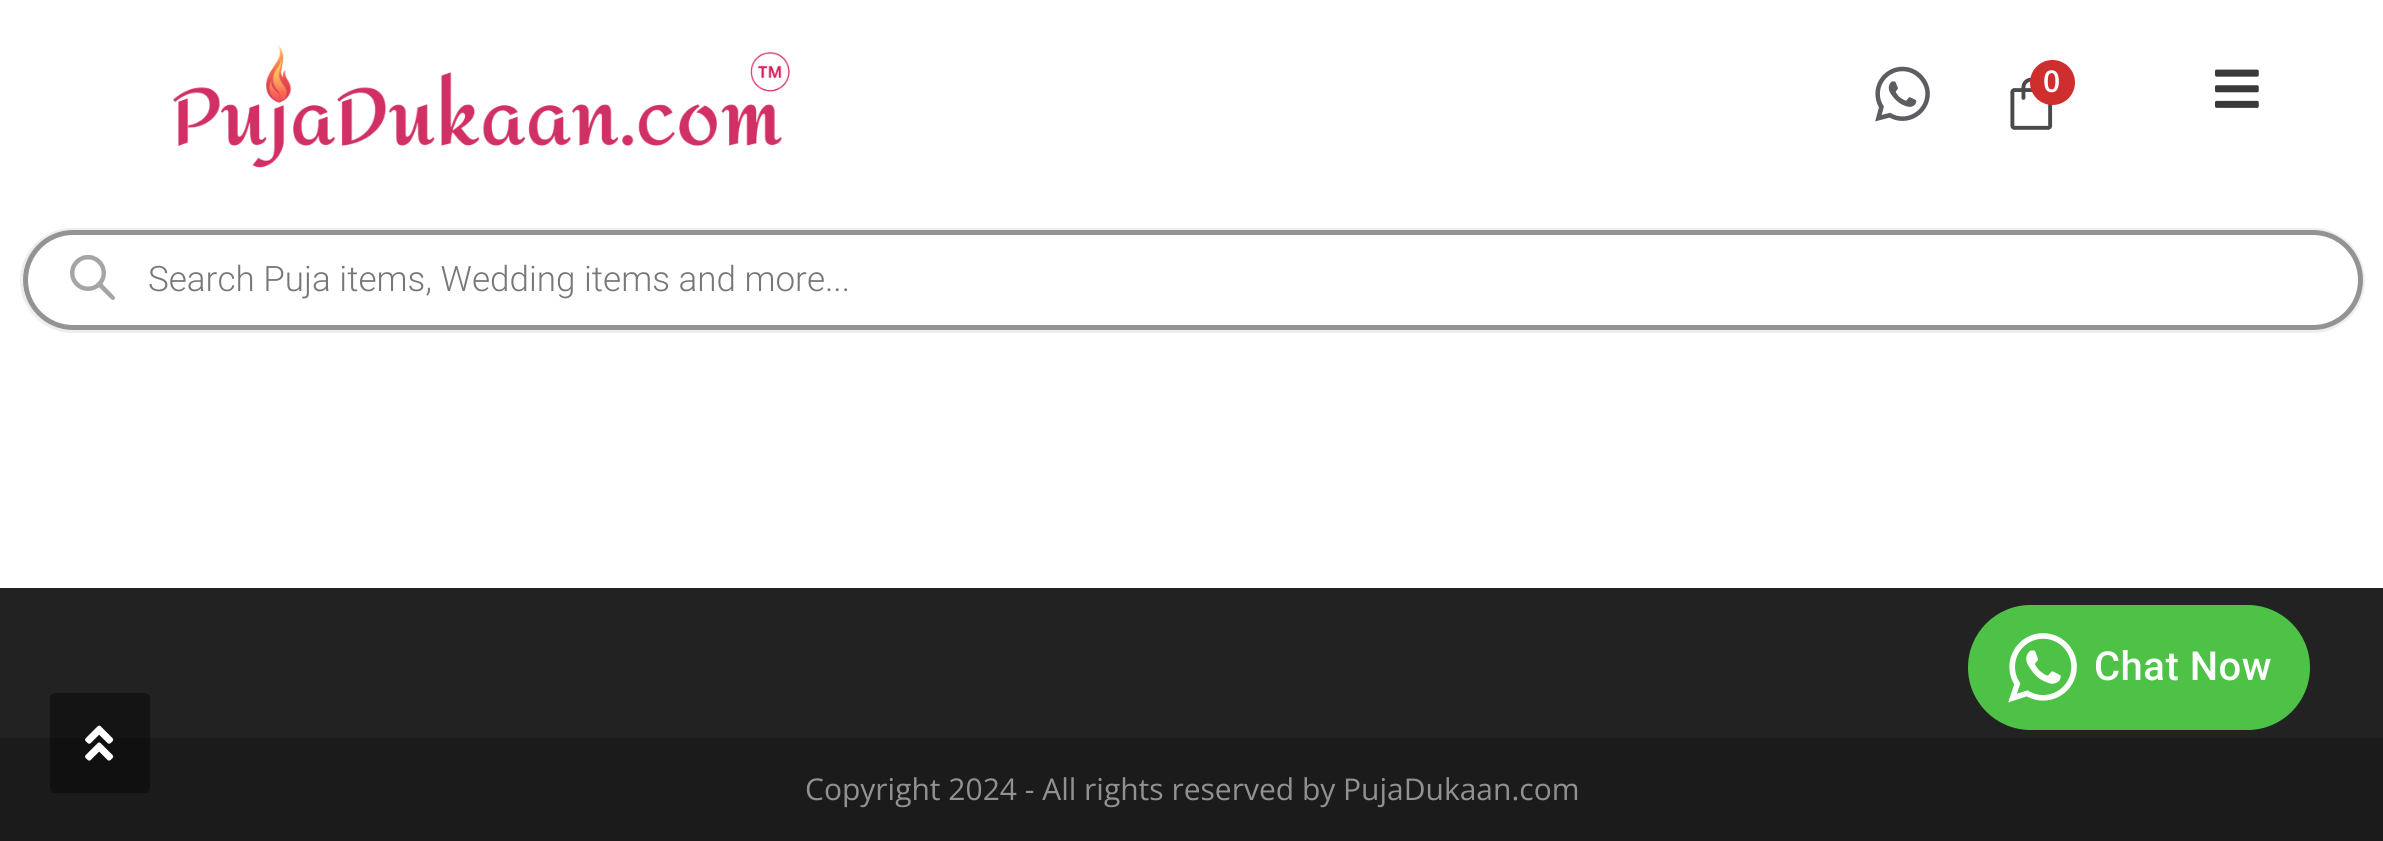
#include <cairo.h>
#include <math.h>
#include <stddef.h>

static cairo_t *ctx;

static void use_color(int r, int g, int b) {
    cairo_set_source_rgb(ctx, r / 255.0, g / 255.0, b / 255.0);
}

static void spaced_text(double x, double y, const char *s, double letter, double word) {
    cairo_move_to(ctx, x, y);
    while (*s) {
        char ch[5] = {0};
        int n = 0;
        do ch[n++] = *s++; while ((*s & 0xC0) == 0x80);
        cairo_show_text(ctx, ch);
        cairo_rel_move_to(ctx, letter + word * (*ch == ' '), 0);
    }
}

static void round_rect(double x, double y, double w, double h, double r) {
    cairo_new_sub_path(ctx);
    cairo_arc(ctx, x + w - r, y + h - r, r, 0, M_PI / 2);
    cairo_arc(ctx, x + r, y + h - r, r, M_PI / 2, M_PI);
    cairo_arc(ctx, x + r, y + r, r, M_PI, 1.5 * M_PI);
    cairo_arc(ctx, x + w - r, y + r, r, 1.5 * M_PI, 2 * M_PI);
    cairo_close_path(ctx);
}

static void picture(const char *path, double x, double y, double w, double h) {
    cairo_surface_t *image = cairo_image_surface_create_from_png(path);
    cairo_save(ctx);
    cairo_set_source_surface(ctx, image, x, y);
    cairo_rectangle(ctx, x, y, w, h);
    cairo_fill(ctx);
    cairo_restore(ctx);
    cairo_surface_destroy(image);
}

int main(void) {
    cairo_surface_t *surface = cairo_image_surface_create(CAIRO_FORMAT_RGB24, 2383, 841);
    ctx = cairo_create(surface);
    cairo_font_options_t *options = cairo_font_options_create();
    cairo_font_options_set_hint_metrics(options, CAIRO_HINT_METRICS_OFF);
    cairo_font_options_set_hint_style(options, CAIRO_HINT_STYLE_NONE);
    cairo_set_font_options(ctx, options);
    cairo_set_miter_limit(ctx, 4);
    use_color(255, 255, 255);
    cairo_paint(ctx);
    picture("img1.png", 173, 46, 617, 122);
    picture("img2.png", 1875, 66, 55, 56);
    picture("img3.png", 2010, 77, 43, 53);
    use_color(207, 46, 46);
    cairo_arc(ctx, 2052.5, 82.5, 22.5, 0, 2 * M_PI);
    cairo_fill(ctx);
    cairo_select_font_face(ctx, "Open Sans SemiBold", CAIRO_FONT_SLANT_NORMAL, CAIRO_FONT_WEIGHT_NORMAL);
    cairo_set_font_size(ctx, 30);
    use_color(255, 255, 255);
    cairo_move_to(ctx, 2043, 92);
    cairo_show_text(ctx, "0");
    picture("img4.png", 2215, 69, 44, 39);
    round_rect(21.5, 229.5, 2342, 102, 51);
    use_color(238, 238, 238);
    cairo_set_line_width(ctx, 3);
    cairo_stroke(ctx);
    use_color(255, 255, 255);
    round_rect(25.5, 232.5, 2335, 95, 47.5);
    cairo_fill_preserve(ctx);
    use_color(147, 147, 147);
    cairo_set_line_width(ctx, 5);
    cairo_stroke(ctx);
    picture("img5.png", 70, 255, 45, 45);
    cairo_select_font_face(ctx, "Roboto Light", CAIRO_FONT_SLANT_NORMAL, CAIRO_FONT_WEIGHT_NORMAL);
    cairo_set_font_size(ctx, 35);
    use_color(119, 119, 119);
    cairo_move_to(ctx, 148, 291);
    cairo_show_text(ctx, "Search Puja items, Wedding items and more...");
    use_color(34, 34, 34);
    cairo_rectangle(ctx, 0, 588, 2383, 150);
    cairo_fill(ctx);
    use_color(27, 27, 27);
    cairo_rectangle(ctx, 0, 738, 2383, 103);
    cairo_fill(ctx);
    cairo_select_font_face(ctx, "Open Sans", CAIRO_FONT_SLANT_NORMAL, CAIRO_FONT_WEIGHT_NORMAL);
    cairo_set_font_size(ctx, 30);
    use_color(145, 145, 145);
    cairo_move_to(ctx, 805, 800);
    cairo_show_text(ctx, "Copyright 2024 - All rights reserved by PujaDukaan.com");
    use_color(77, 194, 71);
    round_rect(1968, 605, 342, 125, 62.5);
    cairo_fill(ctx);
    picture("img6.png", 2008, 633, 69, 70);
    cairo_select_font_face(ctx, "Roboto Medium", CAIRO_FONT_SLANT_NORMAL, CAIRO_FONT_WEIGHT_NORMAL);
    cairo_set_font_size(ctx, 40);
    use_color(255, 255, 255);
    spaced_text(2094, 680, "Chat Now", 0.5, 0);
    cairo_set_source_rgba(ctx, 0, 0, 0, 0.4);
    round_rect(50, 693, 100, 100, 5);
    cairo_fill(ctx);
    picture("img7.png", 85, 725, 29, 36);
    cairo_surface_write_to_png(surface, "result.png");
    cairo_font_options_destroy(options);
    cairo_destroy(ctx);
    cairo_surface_destroy(surface);
    return 0;
}
